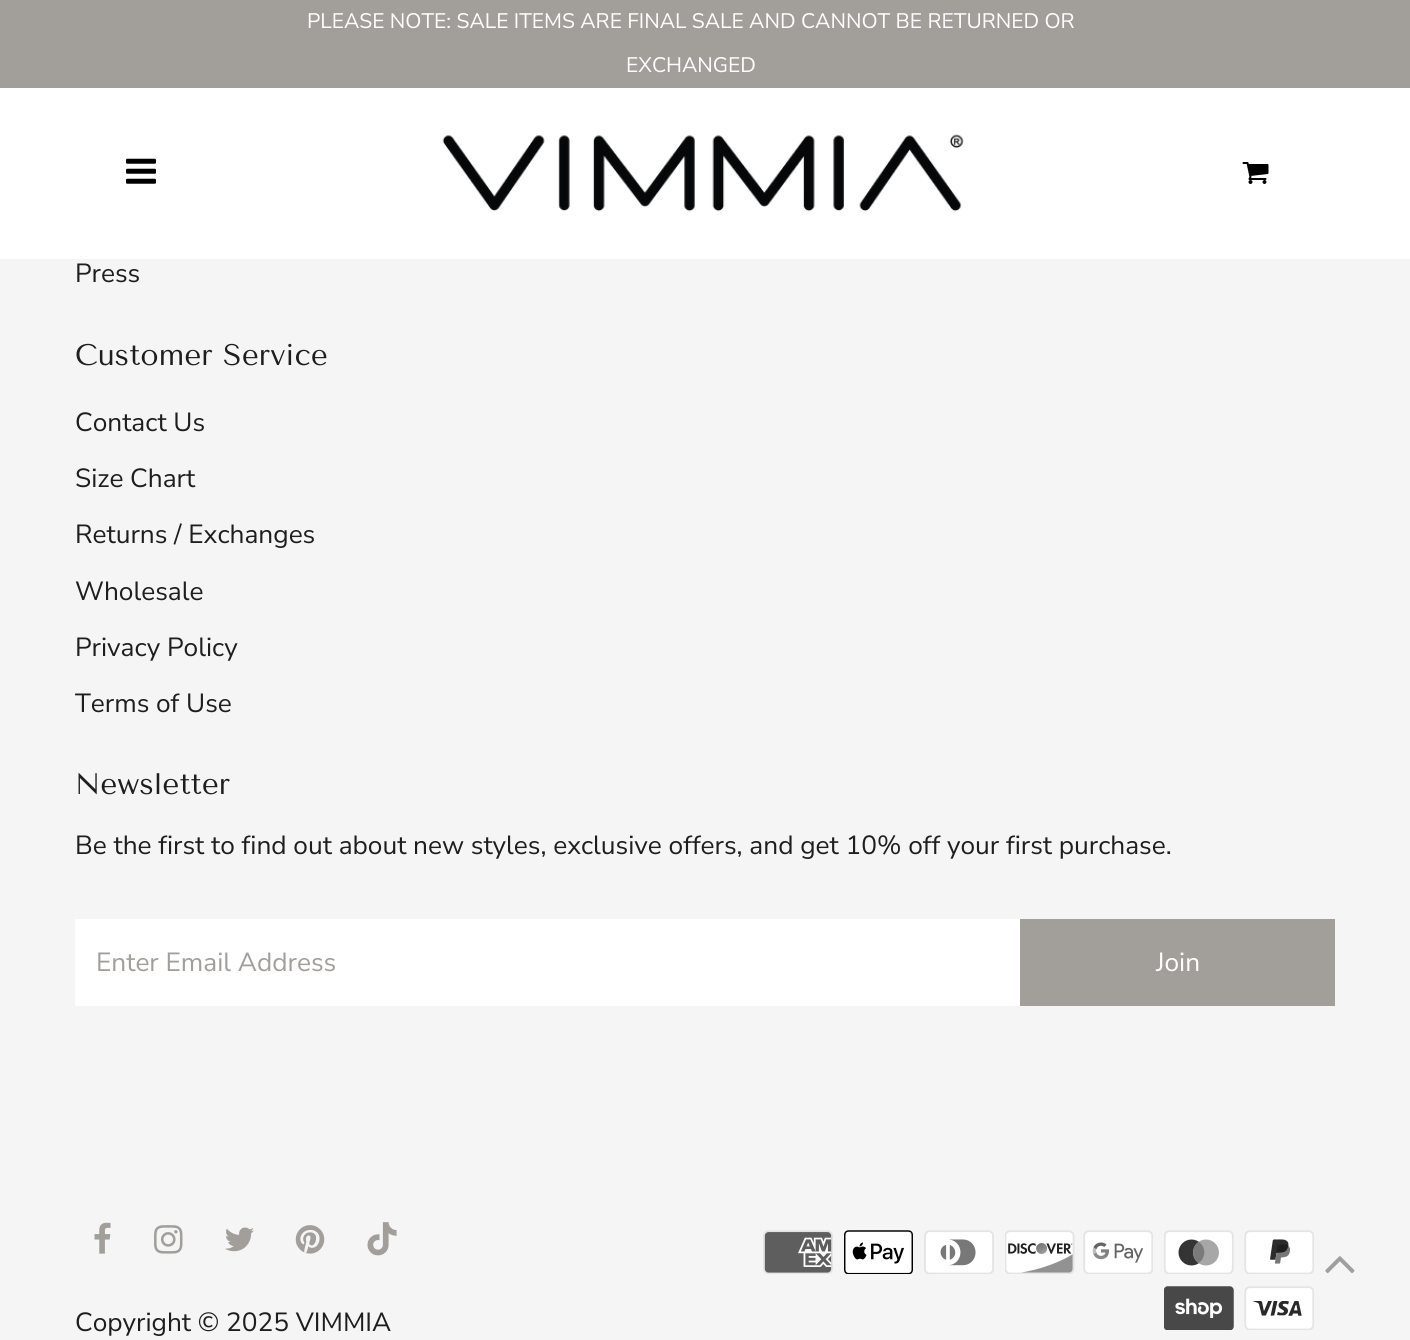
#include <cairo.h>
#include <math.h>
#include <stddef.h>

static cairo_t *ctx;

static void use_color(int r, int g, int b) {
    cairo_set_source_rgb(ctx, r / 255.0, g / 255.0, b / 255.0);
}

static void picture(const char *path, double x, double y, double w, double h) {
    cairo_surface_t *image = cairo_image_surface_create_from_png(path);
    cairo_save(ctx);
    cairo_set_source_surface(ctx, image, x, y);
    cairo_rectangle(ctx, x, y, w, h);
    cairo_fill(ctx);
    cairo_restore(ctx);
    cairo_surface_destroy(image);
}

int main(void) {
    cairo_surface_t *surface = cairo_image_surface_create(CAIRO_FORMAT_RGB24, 1410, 1340);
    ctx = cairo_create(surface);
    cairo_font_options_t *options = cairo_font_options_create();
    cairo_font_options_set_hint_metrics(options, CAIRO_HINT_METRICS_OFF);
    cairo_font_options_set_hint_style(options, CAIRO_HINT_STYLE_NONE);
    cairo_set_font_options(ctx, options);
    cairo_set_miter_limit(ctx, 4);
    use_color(245, 245, 245);
    cairo_paint(ctx);
    use_color(162, 159, 155);
    cairo_rectangle(ctx, 0, 0, 1410, 88);
    cairo_fill(ctx);
    cairo_select_font_face(ctx, "Nunito Sans", CAIRO_FONT_SLANT_NORMAL, CAIRO_FONT_WEIGHT_NORMAL);
    cairo_set_font_size(ctx, 21);
    use_color(255, 255, 255);
    cairo_move_to(ctx, 307, 28);
    cairo_show_text(ctx, "PLEASE NOTE: SALE ITEMS ARE FINAL SALE AND CANNOT BE RETURNED OR");
    cairo_move_to(ctx, 626, 72);
    cairo_show_text(ctx, "EXCHANGED");
    cairo_rectangle(ctx, 0, 88, 1410, 171);
    cairo_fill(ctx);
    picture("img1.png", 126, 158, 30, 26);
    picture("img2.png", 442, 134, 522, 78);
    picture("img3.png", 1242, 162, 27, 22);
    cairo_set_font_size(ctx, 26.25);
    use_color(30, 30, 30);
    cairo_move_to(ctx, 75, 282);
    cairo_show_text(ctx, "Press");
    cairo_select_font_face(ctx, "Tenor Sans", CAIRO_FONT_SLANT_NORMAL, CAIRO_FONT_WEIGHT_NORMAL);
    cairo_set_font_size(ctx, 29.75);
    cairo_move_to(ctx, 75, 365);
    cairo_show_text(ctx, "Customer Service");
    cairo_select_font_face(ctx, "Nunito Sans", CAIRO_FONT_SLANT_NORMAL, CAIRO_FONT_WEIGHT_NORMAL);
    cairo_set_font_size(ctx, 26.25);
    cairo_move_to(ctx, 75, 431);
    cairo_show_text(ctx, "Contact Us");
    cairo_move_to(ctx, 75, 487);
    cairo_show_text(ctx, "Size Chart");
    cairo_move_to(ctx, 75, 543);
    cairo_show_text(ctx, "Returns / Exchanges");
    cairo_move_to(ctx, 75, 600);
    cairo_show_text(ctx, "Wholesale");
    cairo_move_to(ctx, 75, 656);
    cairo_show_text(ctx, "Privacy Policy");
    cairo_move_to(ctx, 75, 712);
    cairo_show_text(ctx, "Terms of Use");
    cairo_select_font_face(ctx, "Tenor Sans", CAIRO_FONT_SLANT_NORMAL, CAIRO_FONT_WEIGHT_NORMAL);
    cairo_set_font_size(ctx, 29.75);
    cairo_move_to(ctx, 75, 794);
    cairo_show_text(ctx, "Newsletter");
    cairo_select_font_face(ctx, "Nunito Sans", CAIRO_FONT_SLANT_NORMAL, CAIRO_FONT_WEIGHT_NORMAL);
    cairo_set_font_size(ctx, 26.25);
    cairo_move_to(ctx, 75, 854);
    cairo_show_text(ctx, "Be the first to find out about new styles, exclusive offers, and get 10% off your first purchase.");
    use_color(255, 255, 255);
    cairo_rectangle(ctx, 75, 919, 945, 87);
    cairo_fill(ctx);
    use_color(162, 159, 155);
    cairo_move_to(ctx, 96, 971);
    cairo_show_text(ctx, "Enter Email Address");
    cairo_rectangle(ctx, 1020, 919, 315, 87);
    cairo_fill(ctx);
    use_color(255, 255, 255);
    cairo_move_to(ctx, 1156, 971);
    cairo_show_text(ctx, "Join");
    picture("img4.png", 94, 1222, 17, 32);
    picture("img5.png", 154, 1225, 29, 29);
    picture("img6.png", 225, 1227, 29, 25);
    picture("img7.png", 295, 1225, 30, 29);
    picture("img8.png", 367, 1222, 30, 34);
    use_color(30, 30, 30);
    cairo_move_to(ctx, 75, 1331);
    cairo_show_text(ctx, "Copyright © 2025 VIMMIA");
    picture("img9.png", 763, 1230, 70, 44);
    picture("img10.png", 844, 1230, 69, 44);
    picture("img11.png", 924, 1230, 70, 44);
    picture("img12.png", 1005, 1230, 70, 44);
    picture("img13.png", 1083, 1230, 70, 44);
    picture("img14.png", 1164, 1230, 70, 44);
    picture("img15.png", 1244, 1230, 70, 44);
    picture("img16.png", 1164, 1286, 70, 44);
    picture("img17.png", 1244, 1286, 70, 44);
    picture("img18.png", 1325, 1256, 30, 18);
    cairo_surface_write_to_png(surface, "result.png");
    cairo_font_options_destroy(options);
    cairo_destroy(ctx);
    cairo_surface_destroy(surface);
    return 0;
}
